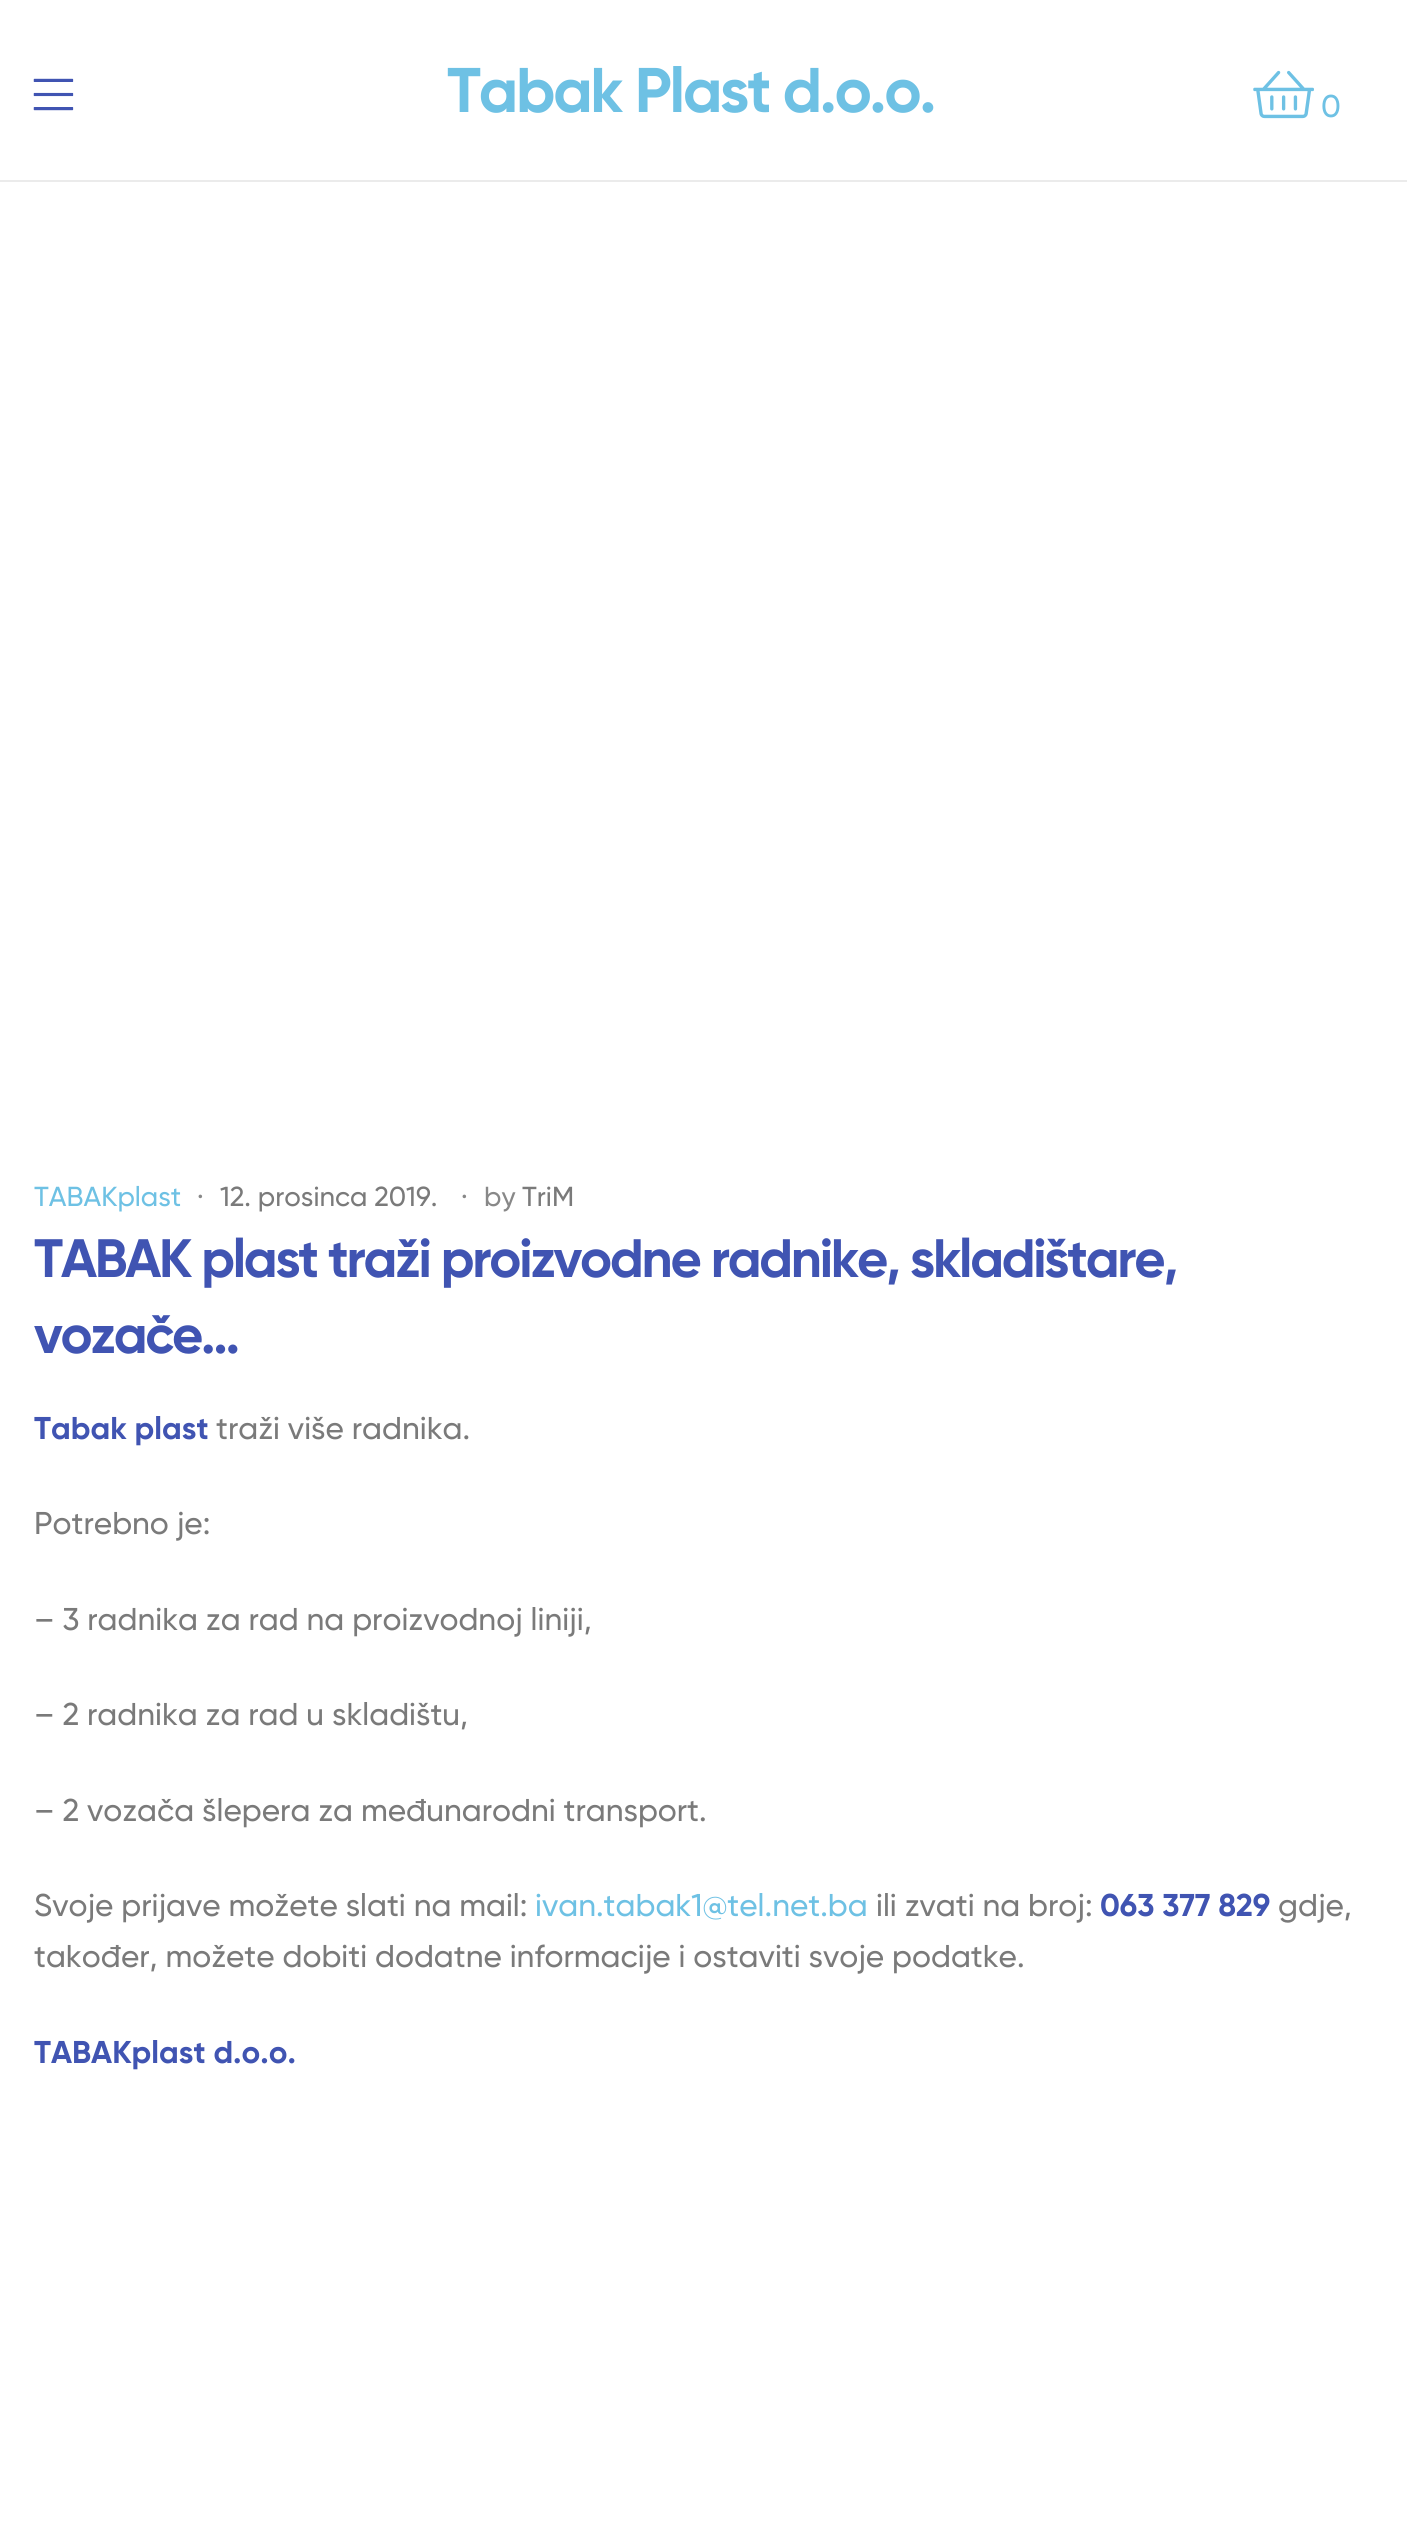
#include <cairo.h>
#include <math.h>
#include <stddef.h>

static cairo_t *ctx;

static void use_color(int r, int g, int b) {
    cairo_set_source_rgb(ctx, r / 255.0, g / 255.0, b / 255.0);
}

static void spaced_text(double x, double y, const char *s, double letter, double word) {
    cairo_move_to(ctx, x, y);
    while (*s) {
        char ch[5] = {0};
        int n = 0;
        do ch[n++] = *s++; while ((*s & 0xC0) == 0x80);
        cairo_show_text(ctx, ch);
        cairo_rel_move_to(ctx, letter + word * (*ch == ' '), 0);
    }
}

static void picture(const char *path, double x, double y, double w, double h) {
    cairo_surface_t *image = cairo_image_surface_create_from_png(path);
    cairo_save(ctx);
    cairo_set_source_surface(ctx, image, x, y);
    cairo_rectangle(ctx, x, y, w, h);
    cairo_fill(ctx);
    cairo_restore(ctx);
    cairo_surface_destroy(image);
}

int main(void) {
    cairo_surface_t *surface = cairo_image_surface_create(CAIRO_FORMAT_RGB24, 1407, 2536);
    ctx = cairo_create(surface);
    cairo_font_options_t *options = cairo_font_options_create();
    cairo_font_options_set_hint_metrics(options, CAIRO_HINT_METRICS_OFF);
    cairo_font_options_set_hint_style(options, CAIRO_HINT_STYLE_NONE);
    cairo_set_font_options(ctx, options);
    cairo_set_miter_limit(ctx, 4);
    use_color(255, 255, 255);
    cairo_paint(ctx);
    use_color(235, 235, 235);
    cairo_rectangle(ctx, 0, 180, 1407, 2);
    cairo_fill(ctx);
    picture("img1.png", 33, 78, 41, 33);
    cairo_select_font_face(ctx, "Gilroy", CAIRO_FONT_SLANT_NORMAL, CAIRO_FONT_WEIGHT_BOLD);
    cairo_set_font_size(ctx, 63);
    use_color(110, 193, 228);
    spaced_text(447, 112, "Tabak Plast d.o.o.", -2.25, 0);
    picture("img2.png", 1253, 70, 61, 49);
    cairo_select_font_face(ctx, "Gilroy Medium", CAIRO_FONT_SLANT_NORMAL, CAIRO_FONT_WEIGHT_NORMAL);
    cairo_set_font_size(ctx, 31.5);
    cairo_move_to(ctx, 1321, 117);
    cairo_show_text(ctx, "0");
    cairo_set_font_size(ctx, 27.5);
    cairo_move_to(ctx, 34, 1206);
    cairo_show_text(ctx, "TABAKplast");
    use_color(136, 136, 136);
    cairo_move_to(ctx, 197, 1206);
    cairo_show_text(ctx, "·");
    use_color(122, 122, 122);
    cairo_move_to(ctx, 220, 1206);
    cairo_show_text(ctx, "12. prosinca 2019.");
    use_color(136, 136, 136);
    cairo_move_to(ctx, 461, 1206);
    cairo_show_text(ctx, "·");
    cairo_move_to(ctx, 484, 1206);
    cairo_show_text(ctx, "by");
    use_color(122, 122, 122);
    cairo_move_to(ctx, 522, 1206);
    cairo_show_text(ctx, "TriM");
    cairo_select_font_face(ctx, "Gilroy", CAIRO_FONT_SLANT_NORMAL, CAIRO_FONT_WEIGHT_BOLD);
    cairo_set_font_size(ctx, 54);
    use_color(64, 84, 178);
    spaced_text(34, 1277, "TABAK plast traži proizvodne radnike, skladištare,", -2.25, 0);
    spaced_text(34, 1353, "vozače…", -2.25, 0);
    cairo_set_font_size(ctx, 31.5);
    cairo_move_to(ctx, 34, 1439);
    cairo_show_text(ctx, "Tabak plast");
    cairo_select_font_face(ctx, "Gilroy Medium", CAIRO_FONT_SLANT_NORMAL, CAIRO_FONT_WEIGHT_NORMAL);
    use_color(122, 122, 122);
    cairo_move_to(ctx, 216, 1439);
    cairo_show_text(ctx, "traži više radnika.");
    cairo_move_to(ctx, 34, 1534);
    cairo_show_text(ctx, "Potrebno je:");
    cairo_move_to(ctx, 34, 1630);
    cairo_show_text(ctx, "– 3 radnika za rad na proizvodnoj liniji,");
    cairo_move_to(ctx, 34, 1725);
    cairo_show_text(ctx, "– 2 radnika za rad u skladištu,");
    cairo_move_to(ctx, 34, 1821);
    cairo_show_text(ctx, "– 2 vozača šlepera za međunarodni transport.");
    cairo_move_to(ctx, 34, 1916);
    cairo_show_text(ctx, "Svoje prijave možete slati na mail:");
    use_color(110, 193, 228);
    cairo_move_to(ctx, 535, 1916);
    cairo_show_text(ctx, "ivan.tabak1@tel.net.ba");
    use_color(122, 122, 122);
    cairo_move_to(ctx, 876, 1916);
    cairo_show_text(ctx, "ili zvati na broj:");
    cairo_select_font_face(ctx, "Gilroy", CAIRO_FONT_SLANT_NORMAL, CAIRO_FONT_WEIGHT_BOLD);
    use_color(64, 84, 178);
    cairo_move_to(ctx, 1100, 1916);
    cairo_show_text(ctx, "063 377 829");
    cairo_select_font_face(ctx, "Gilroy Medium", CAIRO_FONT_SLANT_NORMAL, CAIRO_FONT_WEIGHT_NORMAL);
    use_color(122, 122, 122);
    cairo_move_to(ctx, 1278, 1916);
    cairo_show_text(ctx, "gdje,");
    cairo_move_to(ctx, 34, 1967);
    cairo_show_text(ctx, "također, možete dobiti dodatne informacije i ostaviti svoje podatke.");
    cairo_select_font_face(ctx, "Gilroy", CAIRO_FONT_SLANT_NORMAL, CAIRO_FONT_WEIGHT_BOLD);
    use_color(64, 84, 178);
    cairo_move_to(ctx, 34, 2063);
    cairo_show_text(ctx, "TABAKplast d.o.o.");
    cairo_surface_write_to_png(surface, "result.png");
    cairo_font_options_destroy(options);
    cairo_destroy(ctx);
    cairo_surface_destroy(surface);
    return 0;
}
